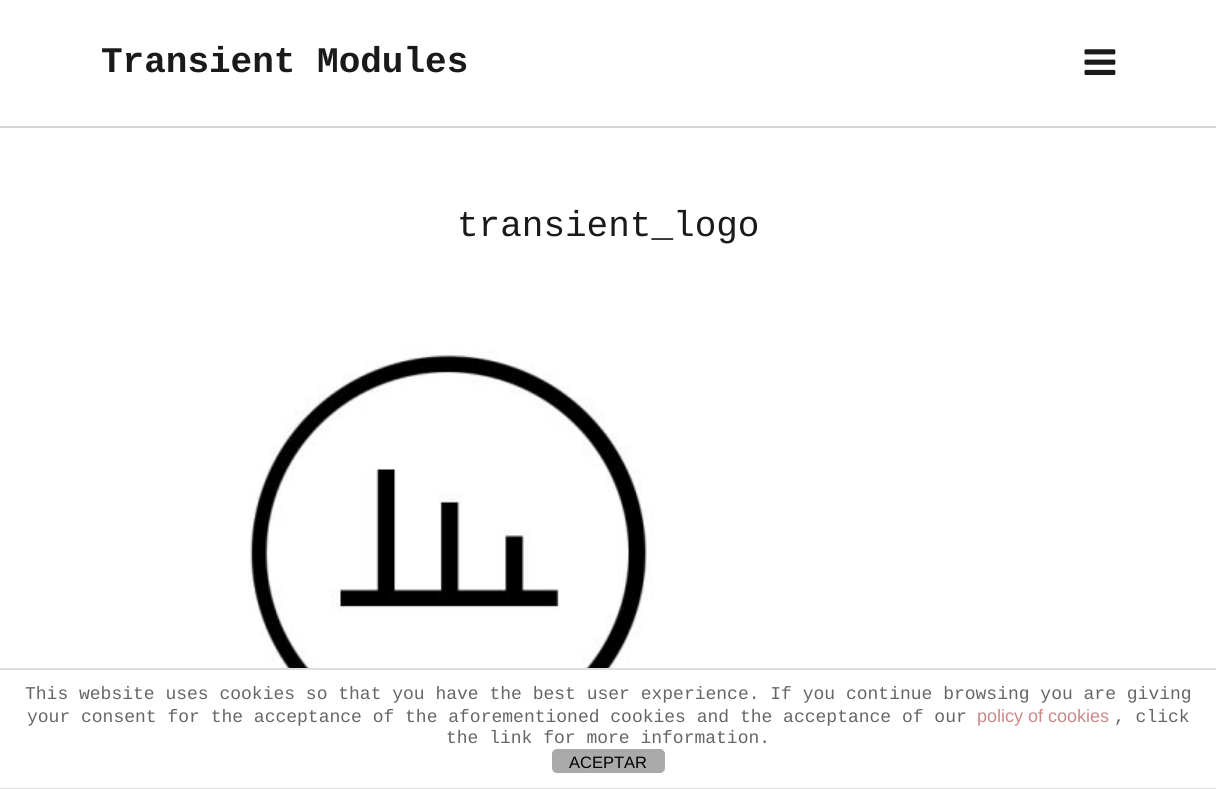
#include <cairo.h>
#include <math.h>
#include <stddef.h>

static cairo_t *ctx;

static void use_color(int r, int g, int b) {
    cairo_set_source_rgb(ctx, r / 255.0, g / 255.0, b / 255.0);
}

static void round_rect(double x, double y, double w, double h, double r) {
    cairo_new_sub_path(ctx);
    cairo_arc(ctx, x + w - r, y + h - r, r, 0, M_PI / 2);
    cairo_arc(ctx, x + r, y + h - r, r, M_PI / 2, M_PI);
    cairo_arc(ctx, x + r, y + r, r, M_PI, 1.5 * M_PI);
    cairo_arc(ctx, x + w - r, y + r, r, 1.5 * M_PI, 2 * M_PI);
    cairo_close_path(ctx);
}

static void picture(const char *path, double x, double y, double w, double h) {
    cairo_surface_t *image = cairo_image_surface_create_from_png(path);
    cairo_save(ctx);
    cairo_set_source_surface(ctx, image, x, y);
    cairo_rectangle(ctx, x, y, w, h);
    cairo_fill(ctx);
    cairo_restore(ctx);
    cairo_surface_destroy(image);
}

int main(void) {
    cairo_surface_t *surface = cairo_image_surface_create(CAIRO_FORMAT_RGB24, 1216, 789);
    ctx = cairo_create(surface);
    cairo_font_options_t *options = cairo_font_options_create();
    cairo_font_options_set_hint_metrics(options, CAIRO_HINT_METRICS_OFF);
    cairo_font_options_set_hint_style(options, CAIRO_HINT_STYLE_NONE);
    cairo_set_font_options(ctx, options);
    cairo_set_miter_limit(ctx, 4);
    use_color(255, 255, 255);
    cairo_paint(ctx);
    use_color(212, 212, 212);
    cairo_rectangle(ctx, 0, 126, 1216, 2);
    cairo_fill(ctx);
    cairo_select_font_face(ctx, "Liberation Mono", CAIRO_FONT_SLANT_NORMAL, CAIRO_FONT_WEIGHT_BOLD);
    cairo_set_font_size(ctx, 36);
    use_color(26, 26, 26);
    cairo_move_to(ctx, 101, 72);
    cairo_show_text(ctx, "Transient Modules");
    picture("img1.png", 1084, 49, 32, 26);
    cairo_select_font_face(ctx, "Liberation Mono", CAIRO_FONT_SLANT_NORMAL, CAIRO_FONT_WEIGHT_NORMAL);
    cairo_move_to(ctx, 457, 236);
    cairo_show_text(ctx, "transient_logo");
    picture("img2.png", 248, 350, 406, 318);
    use_color(221, 221, 221);
    cairo_rectangle(ctx, 0, 668, 1216, 2);
    cairo_fill(ctx);
    cairo_rectangle(ctx, 0, 788, 1216, 1);
    cairo_fill(ctx);
    cairo_set_font_size(ctx, 18);
    use_color(102, 102, 102);
    cairo_move_to(ctx, 25, 699);
    cairo_show_text(ctx, "This website uses cookies so that you have the best user experience. If you continue browsing you are giving");
    cairo_move_to(ctx, 27, 722);
    cairo_show_text(ctx, "your consent for the acceptance of the aforementioned cookies and the acceptance of our");
    cairo_select_font_face(ctx, "Liberation Sans", CAIRO_FONT_SLANT_NORMAL, CAIRO_FONT_WEIGHT_NORMAL);
    use_color(204, 136, 136);
    cairo_move_to(ctx, 977, 722);
    cairo_show_text(ctx, "policy of cookies");
    cairo_select_font_face(ctx, "Liberation Mono", CAIRO_FONT_SLANT_NORMAL, CAIRO_FONT_WEIGHT_NORMAL);
    use_color(102, 102, 102);
    cairo_move_to(ctx, 1114, 722);
    cairo_show_text(ctx, ", click");
    cairo_move_to(ctx, 446, 743);
    cairo_show_text(ctx, "the link for more information.");
    use_color(170, 170, 170);
    round_rect(552, 749, 113, 24, 5);
    cairo_fill(ctx);
    cairo_select_font_face(ctx, "Liberation Sans", CAIRO_FONT_SLANT_NORMAL, CAIRO_FONT_WEIGHT_NORMAL);
    cairo_set_font_size(ctx, 16.5);
    use_color(0, 0, 0);
    cairo_move_to(ctx, 569, 768);
    cairo_show_text(ctx, "ACEPTAR");
    cairo_surface_write_to_png(surface, "result.png");
    cairo_font_options_destroy(options);
    cairo_destroy(ctx);
    cairo_surface_destroy(surface);
    return 0;
}
